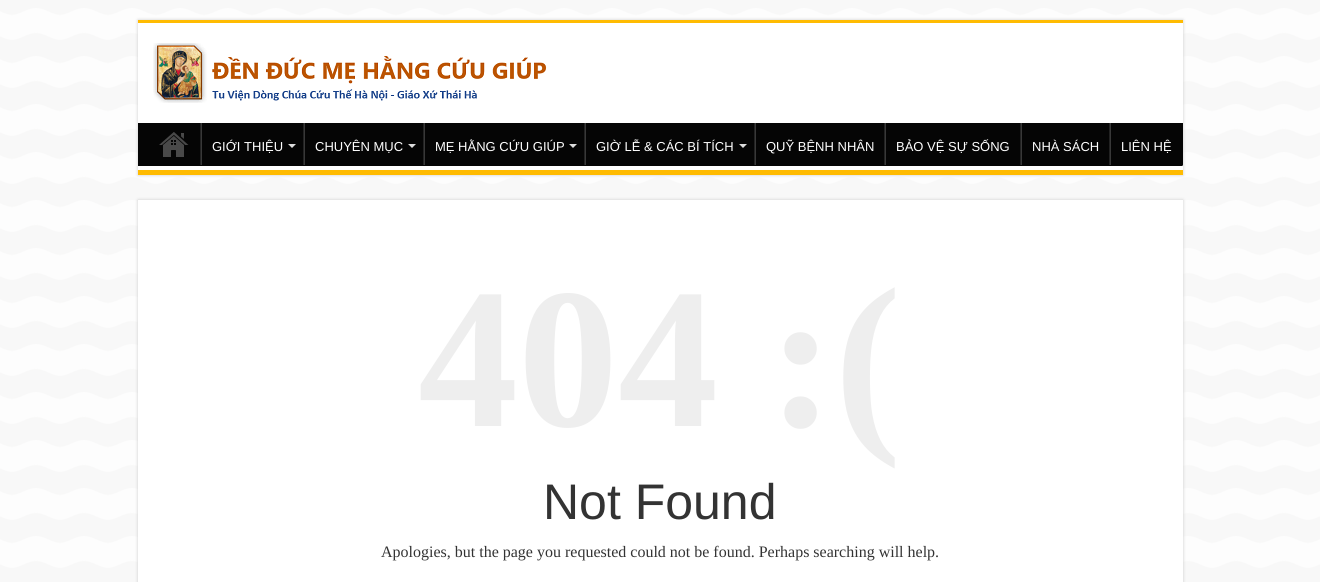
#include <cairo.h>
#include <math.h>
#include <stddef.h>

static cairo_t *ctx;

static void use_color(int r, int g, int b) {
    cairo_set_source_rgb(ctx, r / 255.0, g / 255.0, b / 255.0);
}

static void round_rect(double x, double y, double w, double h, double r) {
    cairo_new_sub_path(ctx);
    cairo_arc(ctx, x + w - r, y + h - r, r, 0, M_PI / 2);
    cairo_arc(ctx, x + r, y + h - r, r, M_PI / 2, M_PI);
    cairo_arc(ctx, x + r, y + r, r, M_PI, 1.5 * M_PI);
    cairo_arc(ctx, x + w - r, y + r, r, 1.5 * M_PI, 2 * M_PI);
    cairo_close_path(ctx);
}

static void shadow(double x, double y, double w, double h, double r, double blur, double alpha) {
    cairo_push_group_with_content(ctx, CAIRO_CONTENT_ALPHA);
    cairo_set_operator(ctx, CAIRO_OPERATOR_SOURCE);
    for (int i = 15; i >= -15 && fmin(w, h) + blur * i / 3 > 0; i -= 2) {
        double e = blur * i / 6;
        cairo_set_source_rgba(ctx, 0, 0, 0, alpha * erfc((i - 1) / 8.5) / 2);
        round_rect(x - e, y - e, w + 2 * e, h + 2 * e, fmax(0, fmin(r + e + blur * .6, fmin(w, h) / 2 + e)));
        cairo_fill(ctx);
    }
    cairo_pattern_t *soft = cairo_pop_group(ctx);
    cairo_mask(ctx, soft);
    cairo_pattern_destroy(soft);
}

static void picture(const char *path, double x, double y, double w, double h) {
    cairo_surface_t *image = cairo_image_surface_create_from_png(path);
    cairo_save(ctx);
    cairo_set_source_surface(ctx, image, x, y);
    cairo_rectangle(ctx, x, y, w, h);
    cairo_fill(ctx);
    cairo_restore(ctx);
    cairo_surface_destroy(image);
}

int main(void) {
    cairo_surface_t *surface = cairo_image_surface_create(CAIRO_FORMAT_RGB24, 1320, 582);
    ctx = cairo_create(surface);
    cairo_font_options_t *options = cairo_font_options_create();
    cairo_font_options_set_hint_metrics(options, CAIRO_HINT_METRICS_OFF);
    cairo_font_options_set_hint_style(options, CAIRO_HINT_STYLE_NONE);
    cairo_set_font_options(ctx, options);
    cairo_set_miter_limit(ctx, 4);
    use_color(255, 255, 255);
    cairo_paint(ctx);
    picture("img1.png", 0, 0, 1320, 582);
    use_color(202, 202, 202);
    shadow(138, 20, 1045, 155, 0, 1.5, 1);
    use_color(255, 255, 255);
    cairo_rectangle(ctx, 138, 23, 1045, 100);
    cairo_fill(ctx);
    use_color(255, 187, 1);
    cairo_rectangle(ctx, 138, 20, 1045, 3);
    cairo_fill(ctx);
    picture("img2.png", 153, 43, 394, 60);
    use_color(5, 5, 5);
    cairo_rectangle(ctx, 138, 123, 1045, 43);
    cairo_fill(ctx);
    cairo_save(ctx);
    cairo_rectangle(ctx, 138, 123, 1045, 47);
    cairo_clip(ctx);
    use_color(255, 255, 255);
    cairo_set_fill_rule(ctx, CAIRO_FILL_RULE_EVEN_ODD);
    cairo_new_path(ctx);
    cairo_move_to(ctx, 39, 24);
    cairo_line_to(ctx, 1282, 24);
    cairo_line_to(ctx, 1282, 269);
    cairo_line_to(ctx, 39, 269);
    cairo_close_path(ctx);
    cairo_move_to(ctx, 137, 117);
    cairo_line_to(ctx, 1183, 117);
    cairo_line_to(ctx, 1183, 157);
    cairo_curve_to(ctx, 1183, 158, 1184, 166, 1182, 166);
    cairo_line_to(ctx, 137, 166);
    cairo_line_to(ctx, 136, 165);
    cairo_line_to(ctx, 136, 117);
    cairo_close_path(ctx);
    cairo_fill(ctx);
    cairo_restore(ctx);
    use_color(255, 187, 1);
    cairo_rectangle(ctx, 138, 170, 1045, 5);
    cairo_fill(ctx);
    picture("img3.png", 159, 132, 30, 25);
    use_color(34, 34, 34);
    cairo_rectangle(ctx, 200, 123, 1, 42);
    cairo_fill(ctx);
    use_color(56, 56, 56);
    cairo_rectangle(ctx, 201, 123, 1, 42);
    cairo_fill(ctx);
    cairo_select_font_face(ctx, "Liberation Sans", CAIRO_FONT_SLANT_NORMAL, CAIRO_FONT_WEIGHT_NORMAL);
    cairo_set_font_size(ctx, 13);
    use_color(255, 255, 255);
    cairo_move_to(ctx, 212, 151);
    cairo_show_text(ctx, "GIỚI THIỆU");
    use_color(221, 221, 221);
    cairo_new_path(ctx);
    cairo_move_to(ctx, 288, 144);
    cairo_line_to(ctx, 296, 144);
    cairo_line_to(ctx, 292, 148);
    cairo_close_path(ctx);
    cairo_fill(ctx);
    use_color(34, 34, 34);
    cairo_rectangle(ctx, 303, 123, 1, 42);
    cairo_fill(ctx);
    use_color(56, 56, 56);
    cairo_rectangle(ctx, 304, 123, 1, 42);
    cairo_fill(ctx);
    use_color(255, 255, 255);
    cairo_move_to(ctx, 315, 151);
    cairo_show_text(ctx, "CHUYÊN MỤC");
    use_color(221, 221, 221);
    cairo_new_path(ctx);
    cairo_move_to(ctx, 408, 144);
    cairo_line_to(ctx, 416, 144);
    cairo_line_to(ctx, 412, 148);
    cairo_close_path(ctx);
    cairo_fill(ctx);
    use_color(34, 34, 34);
    cairo_rectangle(ctx, 423, 123, 1, 42);
    cairo_fill(ctx);
    use_color(56, 56, 56);
    cairo_rectangle(ctx, 424, 123, 1, 42);
    cairo_fill(ctx);
    use_color(255, 255, 255);
    cairo_move_to(ctx, 435, 151);
    cairo_show_text(ctx, "MẸ HẰNG CỨU GIÚP");
    use_color(221, 221, 221);
    cairo_new_path(ctx);
    cairo_move_to(ctx, 569, 144);
    cairo_line_to(ctx, 577, 144);
    cairo_line_to(ctx, 573, 148);
    cairo_close_path(ctx);
    cairo_fill(ctx);
    use_color(34, 34, 34);
    cairo_rectangle(ctx, 584, 123, 1, 42);
    cairo_fill(ctx);
    use_color(56, 56, 56);
    cairo_rectangle(ctx, 585, 123, 1, 42);
    cairo_fill(ctx);
    use_color(255, 255, 255);
    cairo_move_to(ctx, 596, 151);
    cairo_show_text(ctx, "GIỜ LỄ & CÁC BÍ TÍCH");
    use_color(221, 221, 221);
    cairo_new_path(ctx);
    cairo_move_to(ctx, 739, 144);
    cairo_line_to(ctx, 747, 144);
    cairo_line_to(ctx, 743, 148);
    cairo_close_path(ctx);
    cairo_fill(ctx);
    use_color(34, 34, 34);
    cairo_rectangle(ctx, 754, 123, 1, 42);
    cairo_fill(ctx);
    use_color(56, 56, 56);
    cairo_rectangle(ctx, 755, 123, 1, 42);
    cairo_fill(ctx);
    use_color(255, 255, 255);
    cairo_move_to(ctx, 766, 151);
    cairo_show_text(ctx, "QUỸ BỆNH NHÂN");
    use_color(34, 34, 34);
    cairo_rectangle(ctx, 884, 123, 1, 42);
    cairo_fill(ctx);
    use_color(56, 56, 56);
    cairo_rectangle(ctx, 885, 123, 1, 42);
    cairo_fill(ctx);
    use_color(255, 255, 255);
    cairo_move_to(ctx, 896, 151);
    cairo_show_text(ctx, "BẢO VỆ SỰ SỐNG");
    use_color(34, 34, 34);
    cairo_rectangle(ctx, 1020, 123, 1, 42);
    cairo_fill(ctx);
    use_color(56, 56, 56);
    cairo_rectangle(ctx, 1021, 123, 1, 42);
    cairo_fill(ctx);
    use_color(255, 255, 255);
    cairo_move_to(ctx, 1032, 151);
    cairo_show_text(ctx, "NHÀ SÁCH");
    use_color(34, 34, 34);
    cairo_rectangle(ctx, 1109, 123, 1, 42);
    cairo_fill(ctx);
    use_color(56, 56, 56);
    cairo_rectangle(ctx, 1110, 123, 1, 42);
    cairo_fill(ctx);
    use_color(255, 255, 255);
    cairo_move_to(ctx, 1121, 151);
    cairo_show_text(ctx, "LIÊN HỆ");
    use_color(202, 202, 202);
    shadow(138, 200, 1045, 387, 0, 1.5, 1);
    use_color(255, 255, 255);
    cairo_rectangle(ctx, 138, 200, 1045, 382);
    cairo_fill(ctx);
    cairo_select_font_face(ctx, "Liberation Serif", CAIRO_FONT_SLANT_NORMAL, CAIRO_FONT_WEIGHT_BOLD);
    cairo_set_font_size(ctx, 200);
    use_color(238, 238, 238);
    cairo_move_to(ctx, 418, 426);
    cairo_show_text(ctx, "404 :(");
    cairo_select_font_face(ctx, "Liberation Sans", CAIRO_FONT_SLANT_NORMAL, CAIRO_FONT_WEIGHT_NORMAL);
    cairo_set_font_size(ctx, 50);
    use_color(51, 51, 51);
    cairo_move_to(ctx, 543, 519);
    cairo_show_text(ctx, "Not Found");
    cairo_select_font_face(ctx, "Liberation Serif", CAIRO_FONT_SLANT_NORMAL, CAIRO_FONT_WEIGHT_NORMAL);
    cairo_set_font_size(ctx, 16);
    cairo_move_to(ctx, 381, 557);
    cairo_show_text(ctx, "Apologies, but the page you requested could not be found. Perhaps searching will help.");
    cairo_surface_write_to_png(surface, "result.png");
    cairo_font_options_destroy(options);
    cairo_destroy(ctx);
    cairo_surface_destroy(surface);
    return 0;
}
